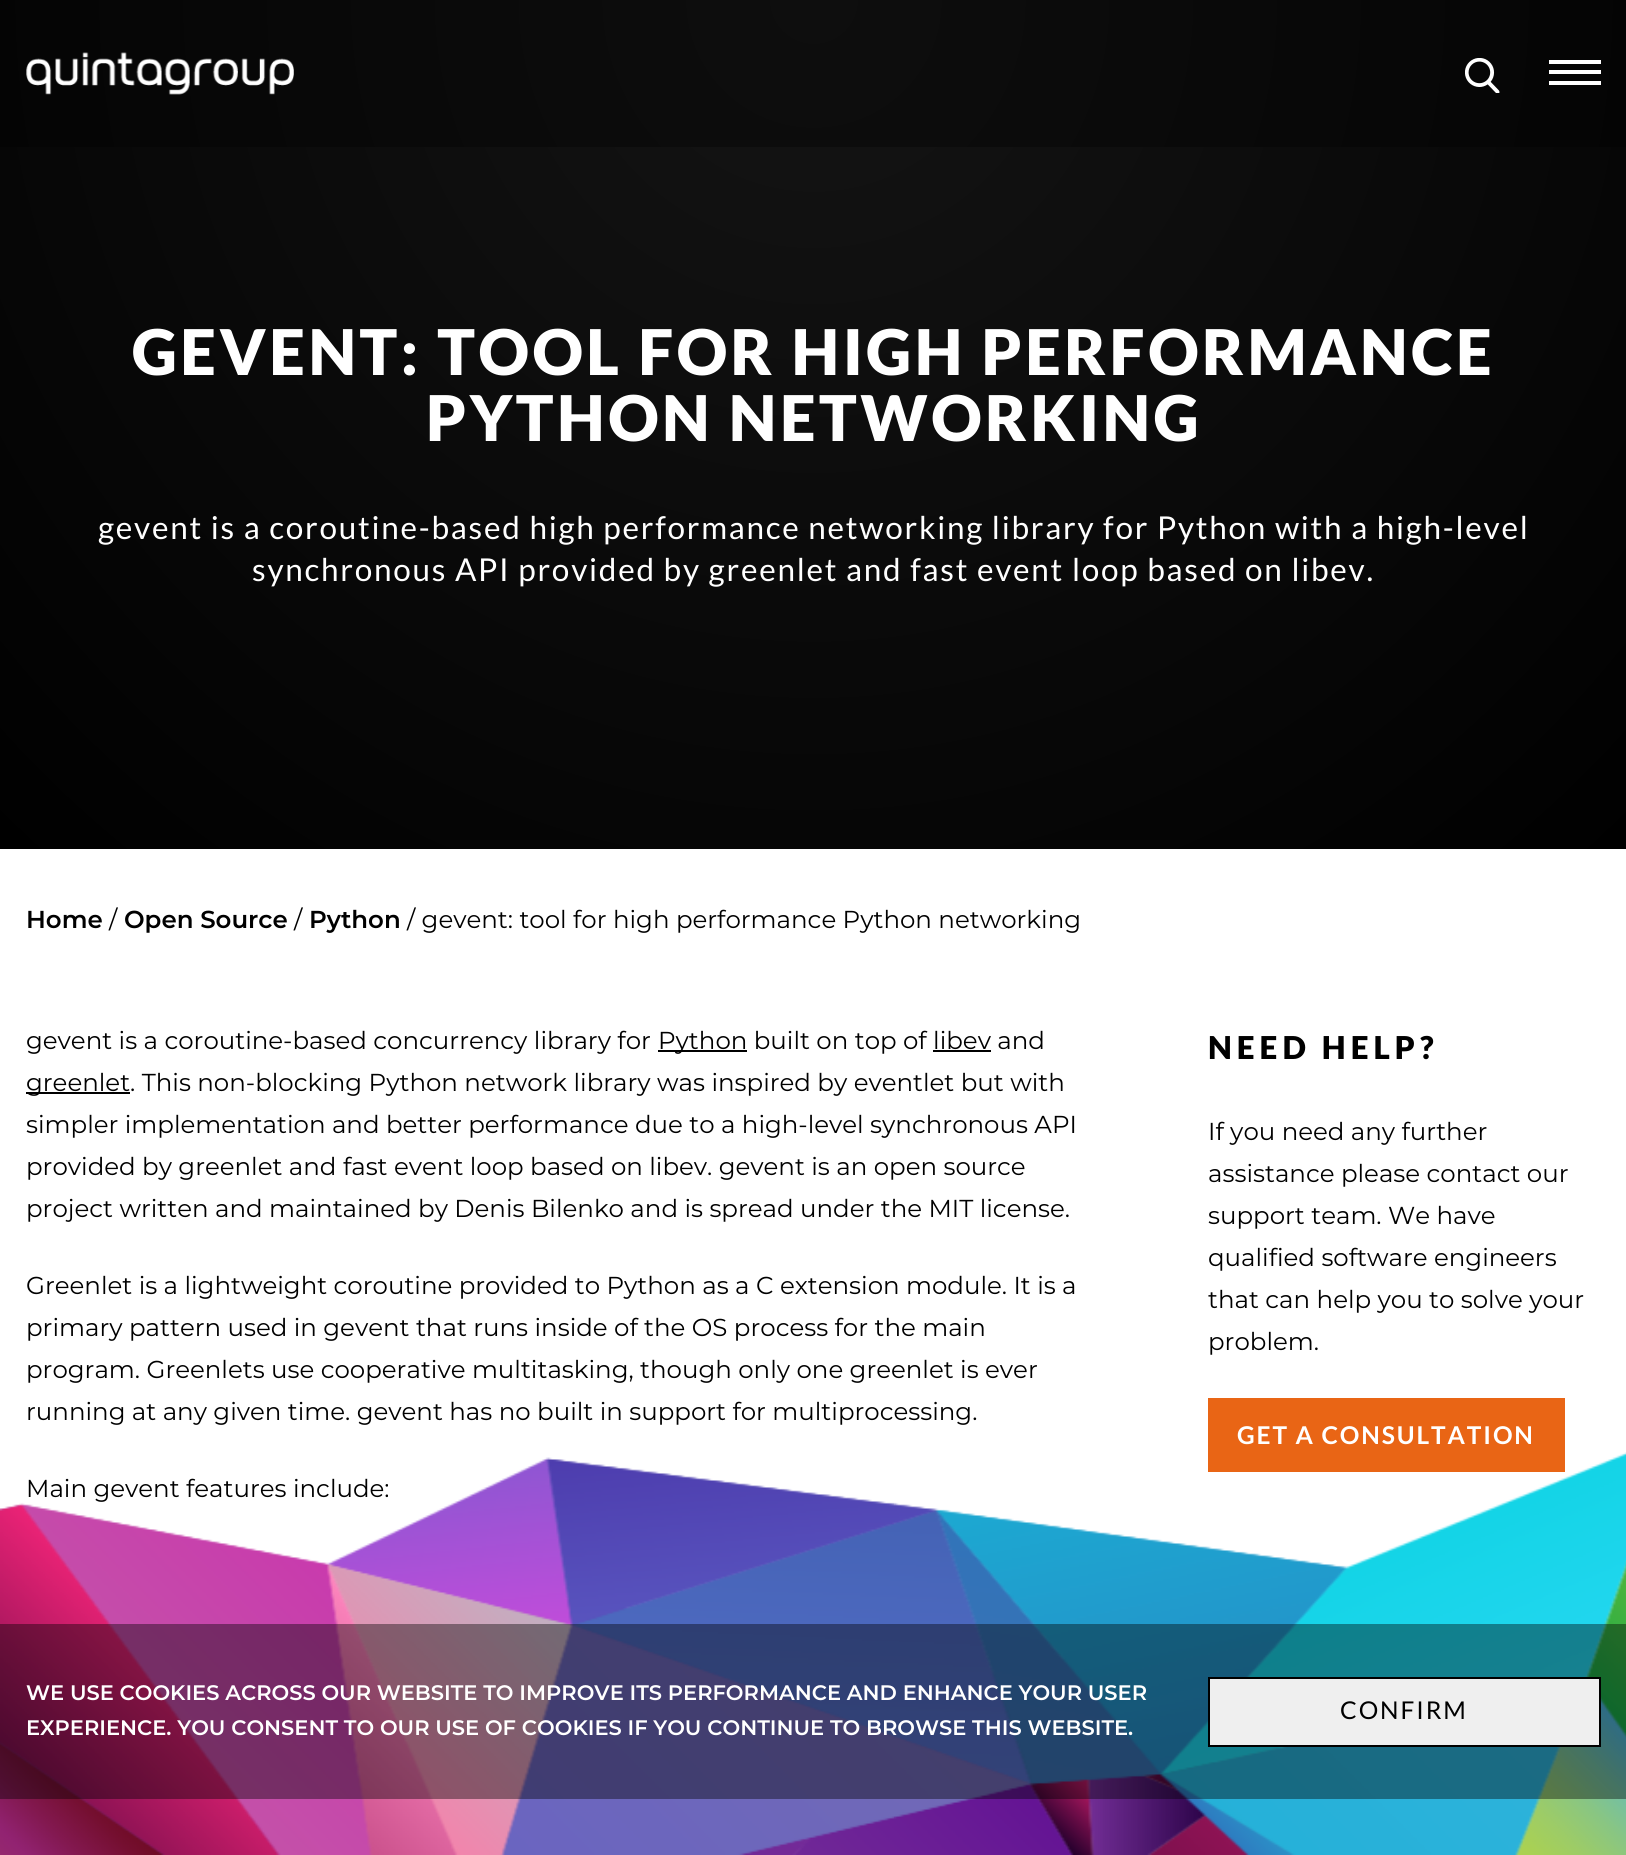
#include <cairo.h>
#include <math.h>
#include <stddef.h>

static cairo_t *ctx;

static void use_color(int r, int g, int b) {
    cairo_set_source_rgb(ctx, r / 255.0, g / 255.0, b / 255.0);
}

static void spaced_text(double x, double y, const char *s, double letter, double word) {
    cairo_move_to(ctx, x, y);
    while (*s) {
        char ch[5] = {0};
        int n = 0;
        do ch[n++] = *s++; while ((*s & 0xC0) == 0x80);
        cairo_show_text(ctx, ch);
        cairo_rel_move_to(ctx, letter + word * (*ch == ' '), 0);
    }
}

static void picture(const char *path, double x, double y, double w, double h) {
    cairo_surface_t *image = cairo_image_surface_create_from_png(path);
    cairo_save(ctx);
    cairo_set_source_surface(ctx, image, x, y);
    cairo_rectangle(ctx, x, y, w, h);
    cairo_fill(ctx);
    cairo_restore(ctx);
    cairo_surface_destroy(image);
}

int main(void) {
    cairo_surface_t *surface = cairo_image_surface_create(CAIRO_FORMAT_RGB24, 1626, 1855);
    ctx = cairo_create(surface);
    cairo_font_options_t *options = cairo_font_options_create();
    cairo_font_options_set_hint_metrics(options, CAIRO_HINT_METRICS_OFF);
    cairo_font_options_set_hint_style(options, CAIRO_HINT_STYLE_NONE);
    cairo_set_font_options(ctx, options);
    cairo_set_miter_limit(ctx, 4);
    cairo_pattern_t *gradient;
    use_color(255, 255, 255);
    cairo_paint(ctx);
    gradient = cairo_pattern_create_radial(814, 0, 0, 814, 0, 1176);
    cairo_pattern_add_color_stop_rgba(gradient, 0, 0.055, 0.055, 0.055, 1);
    cairo_pattern_add_color_stop_rgba(gradient, 1, 0, 0, 0, 1);
    cairo_set_source(ctx, gradient);
    cairo_pattern_destroy(gradient);
    cairo_rectangle(ctx, 0, 0, 1626, 147);
    cairo_fill(ctx);
    picture("img1.png", 26, 52, 268, 43);
    picture("img2.png", 1465, 58, 35, 35);
    use_color(255, 255, 255);
    cairo_rectangle(ctx, 1549, 60, 52, 4);
    cairo_fill(ctx);
    cairo_rectangle(ctx, 1549, 70, 52, 4);
    cairo_fill(ctx);
    cairo_rectangle(ctx, 1549, 81, 52, 4);
    cairo_fill(ctx);
    gradient = cairo_pattern_create_radial(814, 0, 0, 814, 0, 1176);
    cairo_pattern_add_color_stop_rgba(gradient, 0, 0.082, 0.082, 0.082, 1);
    cairo_pattern_add_color_stop_rgba(gradient, 1, 0, 0, 0, 1);
    cairo_set_source(ctx, gradient);
    cairo_pattern_destroy(gradient);
    cairo_rectangle(ctx, 0, 147, 1626, 702);
    cairo_fill(ctx);
    cairo_select_font_face(ctx, "Lato Black", CAIRO_FONT_SLANT_NORMAL, CAIRO_FONT_WEIGHT_NORMAL);
    cairo_set_font_size(ctx, 63);
    use_color(255, 255, 255);
    spaced_text(132, 375, "GEVENT: TOOL FOR HIGH PERFORMANCE", 3.5, 0);
    spaced_text(426, 441, "PYTHON NETWORKING", 3.5, 0);
    cairo_select_font_face(ctx, "Lato", CAIRO_FONT_SLANT_NORMAL, CAIRO_FONT_WEIGHT_NORMAL);
    cairo_set_font_size(ctx, 31.5);
    spaced_text(98, 539, "gevent is a coroutine-based high performance networking library for Python with a high-level", 1.75, 0);
    spaced_text(252, 581, "synchronous API provided by greenlet and fast event loop based on libev.", 1.75, 0);
    cairo_select_font_face(ctx, "Montserrat SemiBold", CAIRO_FONT_SLANT_NORMAL, CAIRO_FONT_WEIGHT_NORMAL);
    cairo_set_font_size(ctx, 24.5);
    use_color(0, 0, 0);
    cairo_move_to(ctx, 26, 928);
    cairo_show_text(ctx, "Home");
    cairo_select_font_face(ctx, "Montserrat", CAIRO_FONT_SLANT_NORMAL, CAIRO_FONT_WEIGHT_NORMAL);
    cairo_move_to(ctx, 109, 928);
    cairo_show_text(ctx, "/");
    cairo_select_font_face(ctx, "Montserrat SemiBold", CAIRO_FONT_SLANT_NORMAL, CAIRO_FONT_WEIGHT_NORMAL);
    cairo_move_to(ctx, 124, 928);
    cairo_show_text(ctx, "Open Source");
    cairo_select_font_face(ctx, "Montserrat", CAIRO_FONT_SLANT_NORMAL, CAIRO_FONT_WEIGHT_NORMAL);
    cairo_move_to(ctx, 294, 928);
    cairo_show_text(ctx, "/");
    cairo_select_font_face(ctx, "Montserrat SemiBold", CAIRO_FONT_SLANT_NORMAL, CAIRO_FONT_WEIGHT_NORMAL);
    cairo_move_to(ctx, 309, 928);
    cairo_show_text(ctx, "Python");
    cairo_select_font_face(ctx, "Montserrat", CAIRO_FONT_SLANT_NORMAL, CAIRO_FONT_WEIGHT_NORMAL);
    cairo_move_to(ctx, 407, 928);
    cairo_show_text(ctx, "/ gevent: tool for high performance Python networking");
    cairo_move_to(ctx, 26, 1049);
    cairo_show_text(ctx, "gevent is a coroutine-based concurrency library for");
    cairo_rectangle(ctx, 658, 1050, 89, 2);
    cairo_fill(ctx);
    cairo_move_to(ctx, 658, 1049);
    cairo_show_text(ctx, "Python built on top of libev and");
    cairo_rectangle(ctx, 933, 1050, 58, 2);
    cairo_fill(ctx);
    cairo_rectangle(ctx, 26, 1092, 104, 2);
    cairo_fill(ctx);
    cairo_move_to(ctx, 26, 1091);
    cairo_show_text(ctx, "greenlet. This non-blocking Python network library was inspired by eventlet but with");
    cairo_move_to(ctx, 26, 1133);
    cairo_show_text(ctx, "simpler implementation and better performance due to a high-level synchronous API");
    cairo_move_to(ctx, 26, 1175);
    cairo_show_text(ctx, "provided by greenlet and fast event loop based on libev. gevent is an open source");
    cairo_move_to(ctx, 26, 1217);
    cairo_show_text(ctx, "project written and maintained by Denis Bilenko and is spread under the MIT license.");
    cairo_move_to(ctx, 26, 1294);
    cairo_show_text(ctx, "Greenlet is a lightweight coroutine provided to Python as a C extension module. It is a");
    cairo_move_to(ctx, 26, 1336);
    cairo_show_text(ctx, "primary pattern used in gevent that runs inside of the OS process for the main");
    cairo_move_to(ctx, 26, 1378);
    cairo_show_text(ctx, "program. Greenlets use cooperative multitasking, though only one greenlet is ever");
    cairo_move_to(ctx, 26, 1420);
    cairo_show_text(ctx, "running at any given time. gevent has no built in support for multiprocessing.");
    cairo_move_to(ctx, 26, 1497);
    cairo_show_text(ctx, "Main gevent features include:");
    cairo_select_font_face(ctx, "Lato Black", CAIRO_FONT_SLANT_NORMAL, CAIRO_FONT_WEIGHT_NORMAL);
    cairo_set_font_size(ctx, 31.5);
    spaced_text(1208, 1059, "NEED HELP?", 5, 0);
    cairo_select_font_face(ctx, "Montserrat", CAIRO_FONT_SLANT_NORMAL, CAIRO_FONT_WEIGHT_NORMAL);
    cairo_set_font_size(ctx, 24.5);
    cairo_move_to(ctx, 1208, 1140);
    cairo_show_text(ctx, "If you need any further");
    cairo_move_to(ctx, 1208, 1182);
    cairo_show_text(ctx, "assistance please contact our");
    cairo_move_to(ctx, 1208, 1224);
    cairo_show_text(ctx, "support team. We have");
    cairo_move_to(ctx, 1208, 1266);
    cairo_show_text(ctx, "qualified software engineers");
    cairo_move_to(ctx, 1208, 1308);
    cairo_show_text(ctx, "that can help you to solve your");
    cairo_move_to(ctx, 1208, 1350);
    cairo_show_text(ctx, "problem.");
    use_color(233, 101, 21);
    cairo_rectangle(ctx, 1208, 1398, 357, 74);
    cairo_fill(ctx);
    cairo_select_font_face(ctx, "Lato", CAIRO_FONT_SLANT_NORMAL, CAIRO_FONT_WEIGHT_BOLD);
    use_color(255, 255, 255);
    spaced_text(1237, 1444, "GET A CONSULTATION", 1.9, 0);
    picture("img3.png", 0, 1452, 1626, 403);
    cairo_set_source_rgba(ctx, 0, 0, 0, 0.4);
    cairo_rectangle(ctx, 0, 1624, 1626, 175);
    cairo_fill(ctx);
    cairo_select_font_face(ctx, "Montserrat SemiBold", CAIRO_FONT_SLANT_NORMAL, CAIRO_FONT_WEIGHT_NORMAL);
    cairo_set_font_size(ctx, 21);
    use_color(255, 255, 255);
    cairo_move_to(ctx, 26, 1700);
    cairo_show_text(ctx, "WE USE COOKIES ACROSS OUR WEBSITE TO IMPROVE ITS PERFORMANCE AND ENHANCE YOUR USER");
    cairo_move_to(ctx, 26, 1735);
    cairo_show_text(ctx, "EXPERIENCE. YOU CONSENT TO OUR USE OF COOKIES IF YOU CONTINUE TO BROWSE THIS WEBSITE.");
    use_color(239, 239, 239);
    cairo_rectangle(ctx, 1209, 1678, 391, 68);
    cairo_fill_preserve(ctx);
    use_color(0, 0, 0);
    cairo_stroke(ctx);
    cairo_select_font_face(ctx, "Lato", CAIRO_FONT_SLANT_NORMAL, CAIRO_FONT_WEIGHT_NORMAL);
    cairo_set_font_size(ctx, 24.5);
    spaced_text(1340, 1719, "CONFIRM", 1.9, 0);
    cairo_surface_write_to_png(surface, "result.png");
    cairo_font_options_destroy(options);
    cairo_destroy(ctx);
    cairo_surface_destroy(surface);
    return 0;
}
